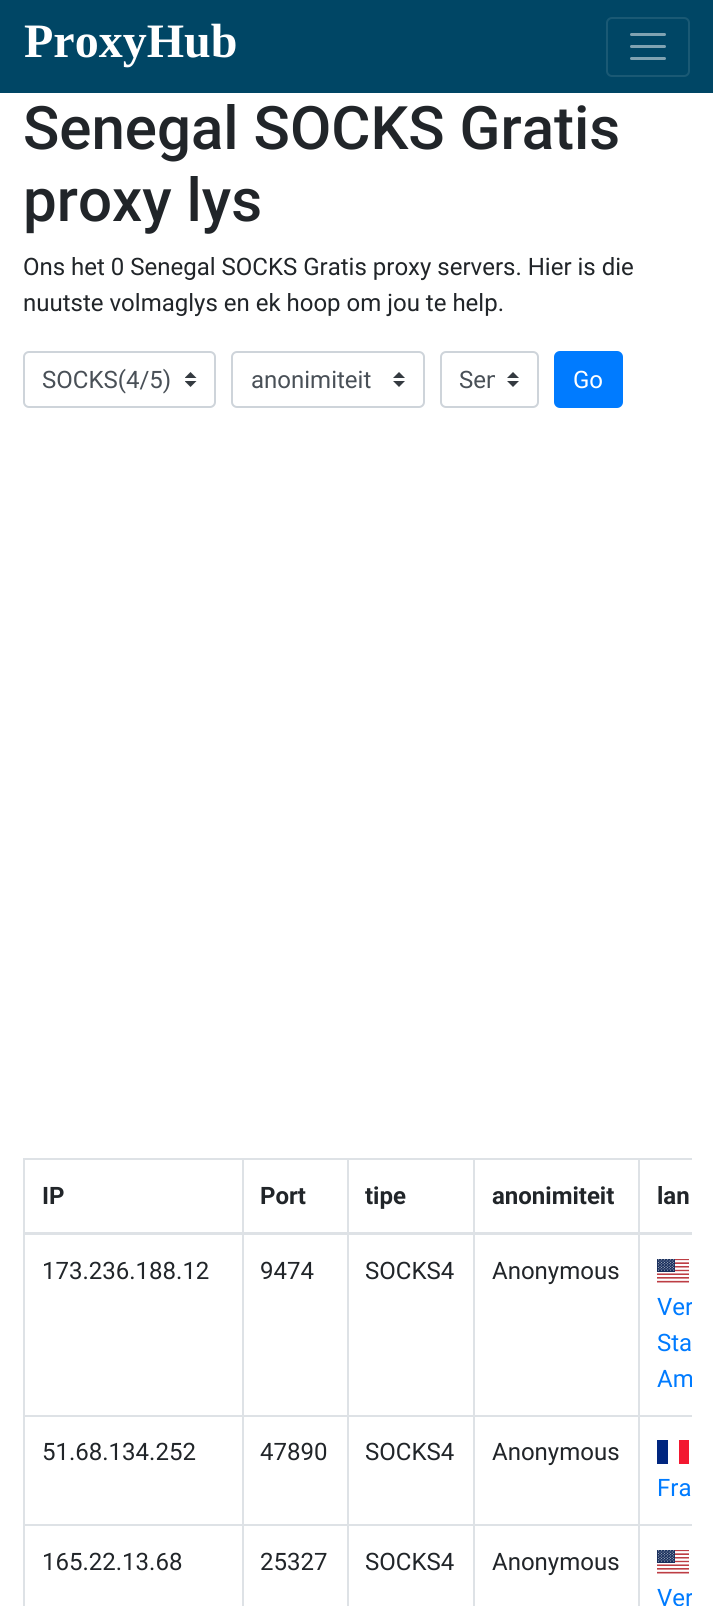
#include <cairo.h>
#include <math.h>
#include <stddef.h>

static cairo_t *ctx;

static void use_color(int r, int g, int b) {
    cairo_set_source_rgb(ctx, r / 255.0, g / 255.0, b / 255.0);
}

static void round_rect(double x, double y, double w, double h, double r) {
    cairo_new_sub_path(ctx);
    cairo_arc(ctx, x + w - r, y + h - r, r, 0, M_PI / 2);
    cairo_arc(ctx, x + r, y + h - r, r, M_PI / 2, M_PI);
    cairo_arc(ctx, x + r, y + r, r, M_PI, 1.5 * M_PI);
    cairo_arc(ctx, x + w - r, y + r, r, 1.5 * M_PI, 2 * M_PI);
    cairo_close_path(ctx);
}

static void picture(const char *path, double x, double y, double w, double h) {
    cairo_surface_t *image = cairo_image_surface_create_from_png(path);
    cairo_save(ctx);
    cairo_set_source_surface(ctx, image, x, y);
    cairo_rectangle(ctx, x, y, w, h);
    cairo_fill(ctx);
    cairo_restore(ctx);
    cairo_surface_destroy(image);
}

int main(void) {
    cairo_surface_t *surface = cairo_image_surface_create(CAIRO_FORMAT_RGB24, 713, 1606);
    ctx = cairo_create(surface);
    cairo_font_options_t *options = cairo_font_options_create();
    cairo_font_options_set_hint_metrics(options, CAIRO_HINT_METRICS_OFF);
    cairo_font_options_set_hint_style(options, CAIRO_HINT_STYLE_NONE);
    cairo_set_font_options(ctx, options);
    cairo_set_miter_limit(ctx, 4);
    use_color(255, 255, 255);
    cairo_paint(ctx);
    use_color(0, 70, 101);
    cairo_rectangle(ctx, 0, 0, 713, 93);
    cairo_fill(ctx);
    cairo_select_font_face(ctx, "Liberation Serif", CAIRO_FONT_SLANT_NORMAL, CAIRO_FONT_WEIGHT_BOLD);
    cairo_set_font_size(ctx, 48);
    use_color(255, 255, 255);
    cairo_move_to(ctx, 24, 57);
    cairo_show_text(ctx, "ProxyHub");
    round_rect(607, 18, 82, 58, 5);
    use_color(26, 89, 116);
    cairo_stroke(ctx);
    cairo_new_path(ctx);
    cairo_move_to(ctx, 631.5, 34.5);
    cairo_line_to(ctx, 664.5, 34.5);
    cairo_move_to(ctx, 631.5, 46.5);
    cairo_line_to(ctx, 664.5, 46.5);
    cairo_move_to(ctx, 631.5, 58.5);
    cairo_line_to(ctx, 664.5, 58.5);
    use_color(128, 163, 178);
    cairo_set_line_width(ctx, 3);
    cairo_set_line_cap(ctx, CAIRO_LINE_CAP_ROUND);
    cairo_stroke(ctx);
    cairo_select_font_face(ctx, "Roboto Medium", CAIRO_FONT_SLANT_NORMAL, CAIRO_FONT_WEIGHT_NORMAL);
    cairo_set_font_size(ctx, 60);
    use_color(33, 37, 41);
    cairo_move_to(ctx, 23, 149);
    cairo_show_text(ctx, "Senegal SOCKS Gratis");
    cairo_move_to(ctx, 23, 221);
    cairo_show_text(ctx, "proxy lys");
    cairo_select_font_face(ctx, "Roboto", CAIRO_FONT_SLANT_NORMAL, CAIRO_FONT_WEIGHT_NORMAL);
    cairo_set_font_size(ctx, 24);
    cairo_move_to(ctx, 23, 275);
    cairo_show_text(ctx, "Ons het 0 Senegal SOCKS Gratis proxy servers. Hier is die");
    cairo_move_to(ctx, 23, 311);
    cairo_show_text(ctx, "nuutste volmaglys en ek hoop om jou te help.");
    picture("img1.png", 185, 372, 12, 15);
    round_rect(24, 352, 191, 55, 5);
    use_color(206, 212, 218);
    cairo_set_line_width(ctx, 2);
    cairo_set_line_cap(ctx, CAIRO_LINE_CAP_BUTT);
    cairo_stroke(ctx);
    use_color(73, 80, 87);
    cairo_move_to(ctx, 42, 388);
    cairo_show_text(ctx, "SOCKS(4/5)");
    picture("img2.png", 393, 372, 12, 15);
    round_rect(232, 352, 192, 55, 5);
    use_color(206, 212, 218);
    cairo_stroke(ctx);
    use_color(73, 80, 87);
    cairo_move_to(ctx, 251, 388);
    cairo_show_text(ctx, "anonimiteit");
    picture("img2.png", 507, 372, 12, 15);
    round_rect(441, 352, 97, 55, 5);
    use_color(206, 212, 218);
    cairo_stroke(ctx);
    cairo_save(ctx);
    cairo_rectangle(ctx, 459, 362, 36, 36);
    cairo_clip(ctx);
    use_color(73, 80, 87);
    cairo_move_to(ctx, 459, 388);
    cairo_show_text(ctx, "Sen");
    cairo_restore(ctx);
    use_color(0, 123, 255);
    round_rect(555, 352, 67, 55, 5);
    cairo_fill_preserve(ctx);
    cairo_stroke(ctx);
    use_color(255, 255, 255);
    cairo_move_to(ctx, 573, 388);
    cairo_show_text(ctx, "Go");
    use_color(222, 226, 230);
    cairo_rectangle(ctx, 638, 1158, 54, 2);
    cairo_fill(ctx);
    cairo_rectangle(ctx, 638, 1415, 54, 2);
    cairo_fill(ctx);
    cairo_rectangle(ctx, 638, 1524, 54, 2);
    cairo_fill(ctx);
    cairo_rectangle(ctx, 638, 1524, 2, 82);
    cairo_fill(ctx);
    cairo_rectangle(ctx, 473, 1524, 166, 2);
    cairo_fill(ctx);
    cairo_rectangle(ctx, 638, 1415, 2, 111);
    cairo_fill(ctx);
    cairo_rectangle(ctx, 473, 1415, 166, 2);
    cairo_fill(ctx);
    cairo_rectangle(ctx, 638, 1233, 2, 183);
    cairo_fill(ctx);
    cairo_rectangle(ctx, 638, 1158, 2, 77);
    cairo_fill(ctx);
    cairo_rectangle(ctx, 473, 1158, 166, 2);
    cairo_fill(ctx);
    cairo_rectangle(ctx, 473, 1524, 2, 82);
    cairo_fill(ctx);
    cairo_rectangle(ctx, 347, 1524, 127, 2);
    cairo_fill(ctx);
    cairo_rectangle(ctx, 473, 1415, 2, 111);
    cairo_fill(ctx);
    cairo_rectangle(ctx, 347, 1415, 127, 2);
    cairo_fill(ctx);
    cairo_rectangle(ctx, 473, 1233, 2, 183);
    cairo_fill(ctx);
    cairo_rectangle(ctx, 473, 1158, 2, 77);
    cairo_fill(ctx);
    cairo_rectangle(ctx, 347, 1158, 127, 2);
    cairo_fill(ctx);
    cairo_rectangle(ctx, 347, 1524, 2, 82);
    cairo_fill(ctx);
    cairo_rectangle(ctx, 242, 1524, 106, 2);
    cairo_fill(ctx);
    cairo_rectangle(ctx, 347, 1415, 2, 111);
    cairo_fill(ctx);
    cairo_rectangle(ctx, 242, 1415, 106, 2);
    cairo_fill(ctx);
    cairo_rectangle(ctx, 347, 1233, 2, 183);
    cairo_fill(ctx);
    cairo_rectangle(ctx, 347, 1158, 2, 77);
    cairo_fill(ctx);
    cairo_rectangle(ctx, 242, 1158, 106, 2);
    cairo_fill(ctx);
    cairo_rectangle(ctx, 242, 1524, 2, 82);
    cairo_fill(ctx);
    cairo_rectangle(ctx, 23, 1524, 220, 2);
    cairo_fill(ctx);
    cairo_rectangle(ctx, 242, 1415, 2, 111);
    cairo_fill(ctx);
    cairo_rectangle(ctx, 23, 1415, 220, 2);
    cairo_fill(ctx);
    cairo_rectangle(ctx, 242, 1233, 2, 183);
    cairo_fill(ctx);
    cairo_rectangle(ctx, 242, 1158, 2, 77);
    cairo_fill(ctx);
    cairo_rectangle(ctx, 23, 1158, 220, 2);
    cairo_fill(ctx);
    cairo_rectangle(ctx, 23, 1524, 2, 82);
    cairo_fill(ctx);
    cairo_rectangle(ctx, 23, 1233, 2, 293);
    cairo_fill(ctx);
    cairo_rectangle(ctx, 23, 1158, 2, 77);
    cairo_fill(ctx);
    cairo_select_font_face(ctx, "Roboto", CAIRO_FONT_SLANT_NORMAL, CAIRO_FONT_WEIGHT_BOLD);
    use_color(33, 37, 41);
    cairo_move_to(ctx, 42, 1204);
    cairo_show_text(ctx, "IP");
    cairo_move_to(ctx, 260, 1204);
    cairo_show_text(ctx, "Port");
    cairo_move_to(ctx, 365, 1204);
    cairo_show_text(ctx, "tipe");
    cairo_move_to(ctx, 492, 1204);
    cairo_show_text(ctx, "anonimiteit");
    use_color(222, 226, 230);
    cairo_rectangle(ctx, 23, 1232, 669, 3);
    cairo_fill(ctx);
    use_color(33, 37, 41);
    cairo_move_to(ctx, 657, 1204);
    cairo_show_text(ctx, "lan");
    cairo_select_font_face(ctx, "Roboto", CAIRO_FONT_SLANT_NORMAL, CAIRO_FONT_WEIGHT_NORMAL);
    cairo_move_to(ctx, 42, 1279);
    cairo_show_text(ctx, "173.236.188.12");
    cairo_move_to(ctx, 260, 1279);
    cairo_show_text(ctx, "9474");
    cairo_move_to(ctx, 365, 1279);
    cairo_show_text(ctx, "SOCKS4");
    cairo_move_to(ctx, 492, 1279);
    cairo_show_text(ctx, "Anonymous");
    picture("img3.png", 657, 1259, 32, 24);
    cairo_save(ctx);
    cairo_rectangle(ctx, 23, 1158, 669, 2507);
    cairo_clip(ctx);
    use_color(0, 123, 255);
    cairo_move_to(ctx, 657, 1315);
    cairo_show_text(ctx, "Ver");
    cairo_restore(ctx);
    use_color(0, 123, 255);
    cairo_move_to(ctx, 657, 1351);
    cairo_show_text(ctx, "Sta");
    cairo_save(ctx);
    cairo_rectangle(ctx, 23, 1158, 669, 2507);
    cairo_clip(ctx);
    cairo_move_to(ctx, 657, 1387);
    cairo_show_text(ctx, "Am");
    cairo_restore(ctx);
    use_color(33, 37, 41);
    cairo_move_to(ctx, 42, 1460);
    cairo_show_text(ctx, "51.68.134.252");
    cairo_move_to(ctx, 260, 1460);
    cairo_show_text(ctx, "47890");
    cairo_move_to(ctx, 365, 1460);
    cairo_show_text(ctx, "SOCKS4");
    cairo_move_to(ctx, 492, 1460);
    cairo_show_text(ctx, "Anonymous");
    use_color(0, 38, 127);
    cairo_rectangle(ctx, 657, 1440, 11, 24);
    cairo_fill(ctx);
    use_color(243, 24, 48);
    cairo_rectangle(ctx, 679, 1440, 10, 24);
    cairo_fill(ctx);
    use_color(0, 123, 255);
    cairo_move_to(ctx, 657, 1496);
    cairo_show_text(ctx, "Fra");
    use_color(33, 37, 41);
    cairo_move_to(ctx, 42, 1570);
    cairo_show_text(ctx, "165.22.13.68");
    cairo_move_to(ctx, 260, 1570);
    cairo_show_text(ctx, "25327");
    cairo_move_to(ctx, 365, 1570);
    cairo_show_text(ctx, "SOCKS4");
    cairo_move_to(ctx, 492, 1570);
    cairo_show_text(ctx, "Anonymous");
    picture("img3.png", 657, 1550, 32, 24);
    cairo_save(ctx);
    cairo_rectangle(ctx, 23, 1158, 669, 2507);
    cairo_clip(ctx);
    use_color(0, 123, 255);
    cairo_move_to(ctx, 657, 1606);
    cairo_show_text(ctx, "Ver");
    cairo_restore(ctx);
    cairo_surface_write_to_png(surface, "result.png");
    cairo_font_options_destroy(options);
    cairo_destroy(ctx);
    cairo_surface_destroy(surface);
    return 0;
}
